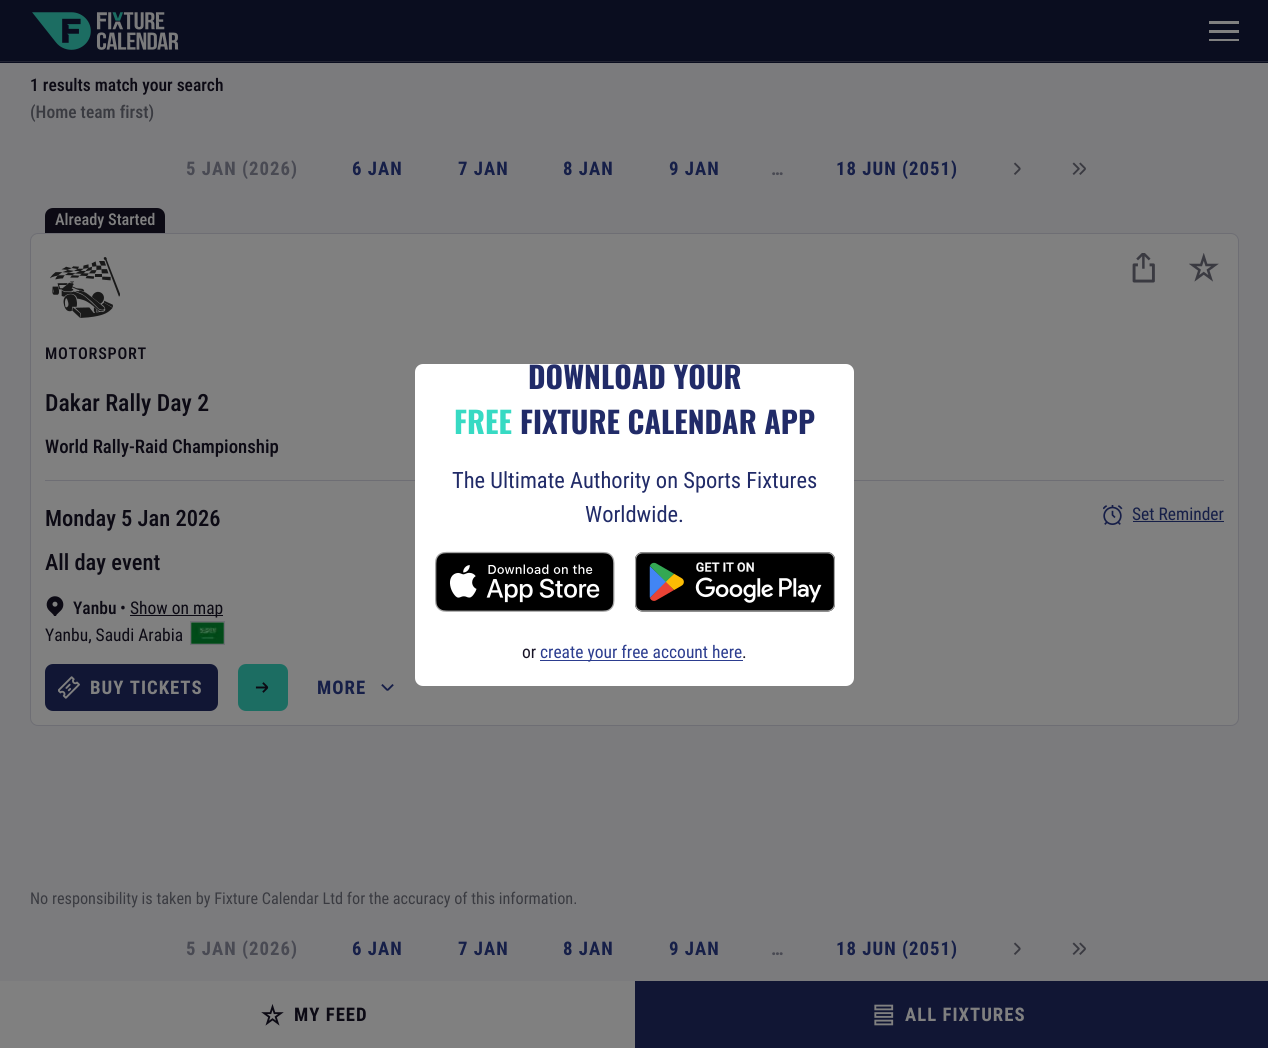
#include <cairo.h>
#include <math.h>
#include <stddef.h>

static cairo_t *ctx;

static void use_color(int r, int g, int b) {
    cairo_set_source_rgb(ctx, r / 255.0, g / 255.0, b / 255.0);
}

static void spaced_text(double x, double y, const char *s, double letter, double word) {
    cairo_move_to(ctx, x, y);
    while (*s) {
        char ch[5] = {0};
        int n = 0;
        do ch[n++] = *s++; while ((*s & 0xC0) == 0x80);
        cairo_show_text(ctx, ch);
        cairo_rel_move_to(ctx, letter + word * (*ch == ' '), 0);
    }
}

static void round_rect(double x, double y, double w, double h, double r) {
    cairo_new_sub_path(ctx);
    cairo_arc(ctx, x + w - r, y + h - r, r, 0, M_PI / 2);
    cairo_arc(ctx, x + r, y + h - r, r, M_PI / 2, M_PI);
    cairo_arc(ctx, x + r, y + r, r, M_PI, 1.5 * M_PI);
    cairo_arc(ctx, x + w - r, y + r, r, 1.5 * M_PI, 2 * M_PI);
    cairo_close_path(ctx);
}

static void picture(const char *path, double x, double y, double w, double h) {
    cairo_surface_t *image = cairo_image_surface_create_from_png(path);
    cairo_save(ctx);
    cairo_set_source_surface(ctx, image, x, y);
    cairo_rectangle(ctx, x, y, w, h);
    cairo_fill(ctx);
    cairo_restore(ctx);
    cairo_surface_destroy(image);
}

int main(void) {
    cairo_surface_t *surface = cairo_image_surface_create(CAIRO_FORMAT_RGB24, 1268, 1048);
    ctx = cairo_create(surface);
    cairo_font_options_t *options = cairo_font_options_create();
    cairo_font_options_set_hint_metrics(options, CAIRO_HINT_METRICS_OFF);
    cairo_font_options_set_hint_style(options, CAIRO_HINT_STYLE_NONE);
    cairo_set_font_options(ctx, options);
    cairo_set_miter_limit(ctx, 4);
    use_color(123, 123, 125);
    cairo_paint(ctx);
    use_color(10, 13, 31);
    cairo_rectangle(ctx, 0, 0, 1268, 63);
    cairo_fill(ctx);
    use_color(34, 36, 51);
    cairo_rectangle(ctx, 0, 61, 1268, 1);
    cairo_fill(ctx);
    picture("img1.png", 32, 12, 147, 38);
    use_color(128, 128, 128);
    cairo_rectangle(ctx, 1209, 30, 30, 3);
    cairo_fill(ctx);
    cairo_rectangle(ctx, 1209, 21, 30, 3);
    cairo_fill(ctx);
    cairo_rectangle(ctx, 1209, 39, 30, 2);
    cairo_fill(ctx);
    cairo_select_font_face(ctx, "Roboto Condensed Medium", CAIRO_FONT_SLANT_NORMAL, CAIRO_FONT_WEIGHT_NORMAL);
    cairo_set_font_size(ctx, 17.5);
    use_color(12, 10, 20);
    cairo_move_to(ctx, 30, 91);
    cairo_show_text(ctx, "1 results match your search");
    use_color(58, 59, 65);
    cairo_move_to(ctx, 30, 118);
    cairo_show_text(ctx, "(Home team first)");
    cairo_select_font_face(ctx, "Roboto Condensed", CAIRO_FONT_SLANT_NORMAL, CAIRO_FONT_WEIGHT_BOLD);
    cairo_set_font_size(ctx, 18.75);
    use_color(73, 74, 83);
    spaced_text(186, 175, "5 JAN (2026)", 1, 0);
    use_color(22, 31, 72);
    spaced_text(352, 175, "6 JAN", 1, 0);
    spaced_text(458, 175, "7 JAN", 1, 0);
    spaced_text(563, 175, "8 JAN", 1, 0);
    spaced_text(669, 175, "9 JAN", 1, 0);
    use_color(73, 74, 83);
    spaced_text(771, 175, "…", 1, 0);
    use_color(22, 31, 72);
    spaced_text(836, 175, "18 JUN (2051)", 1, 0);
    picture("img2.png", 1013, 162, 8, 13);
    picture("img3.png", 1072, 162, 14, 13);
    use_color(12, 10, 20);
    cairo_new_path(ctx);
    cairo_move_to(ctx, 53, 208);
    cairo_line_to(ctx, 157, 208);
    cairo_curve_to(ctx, 161.5, 208, 165, 211.5, 165, 216);
    cairo_line_to(ctx, 165, 233);
    cairo_line_to(ctx, 45, 233);
    cairo_line_to(ctx, 45, 216);
    cairo_curve_to(ctx, 45, 211.5, 48.5, 208, 53, 208);
    cairo_close_path(ctx);
    cairo_fill(ctx);
    cairo_select_font_face(ctx, "Roboto Condensed Medium", CAIRO_FONT_SLANT_NORMAL, CAIRO_FONT_WEIGHT_NORMAL);
    cairo_set_font_size(ctx, 16.25);
    use_color(128, 128, 128);
    cairo_move_to(ctx, 55, 225);
    cairo_show_text(ctx, "Already Started");
    round_rect(30.5, 233.5, 1208, 492, 7.5);
    cairo_fill_preserve(ctx);
    use_color(110, 110, 116);
    cairo_set_line_width(ctx, 1);
    cairo_stroke(ctx);
    picture("img4.png", 1132, 253, 23, 30);
    picture("img5.png", 1189, 253, 30, 29);
    picture("img6.png", 50, 257, 70, 61);
    use_color(12, 10, 20);
    spaced_text(45, 359, "MOTORSPORT", 0.75, 0);
    cairo_set_font_size(ctx, 23.75);
    cairo_move_to(ctx, 45, 411);
    cairo_show_text(ctx, "Dakar Rally Day 2");
    cairo_set_font_size(ctx, 18.75);
    cairo_move_to(ctx, 45, 453);
    cairo_show_text(ctx, "World Rally-Raid Championship");
    picture("img7.png", 46, 596, 18, 20);
    cairo_set_font_size(ctx, 17.5);
    cairo_move_to(ctx, 73, 614);
    cairo_show_text(ctx, "Yanbu");
    cairo_select_font_face(ctx, "Roboto Condensed", CAIRO_FONT_SLANT_NORMAL, CAIRO_FONT_WEIGHT_NORMAL);
    cairo_move_to(ctx, 120, 614);
    cairo_show_text(ctx, "•");
    cairo_rectangle(ctx, 130, 615, 93, 1);
    cairo_fill(ctx);
    cairo_move_to(ctx, 130, 614);
    cairo_show_text(ctx, "Show on map");
    cairo_move_to(ctx, 45, 641);
    cairo_show_text(ctx, "Yanbu, Saudi Arabia");
    cairo_rectangle(ctx, 190.5, 621.5, 34, 23);
    use_color(110, 110, 116);
    cairo_stroke(ctx);
    picture("img8.png", 191, 622, 33, 22);
    cairo_rectangle(ctx, 45, 480, 1179, 1);
    cairo_fill(ctx);
    cairo_select_font_face(ctx, "Roboto Condensed Medium", CAIRO_FONT_SLANT_NORMAL, CAIRO_FONT_WEIGHT_NORMAL);
    cairo_set_font_size(ctx, 22.5);
    use_color(12, 10, 20);
    cairo_move_to(ctx, 45, 526);
    cairo_show_text(ctx, "Monday 5 Jan 2026");
    picture("img9.png", 1103, 505, 20, 20);
    cairo_select_font_face(ctx, "Roboto Condensed", CAIRO_FONT_SLANT_NORMAL, CAIRO_FONT_WEIGHT_NORMAL);
    cairo_set_font_size(ctx, 17.5);
    use_color(22, 31, 72);
    cairo_move_to(ctx, 1132, 520);
    cairo_show_text(ctx, "Set Reminder");
    cairo_rectangle(ctx, 1133, 521, 91, 1);
    cairo_fill(ctx);
    cairo_select_font_face(ctx, "Roboto Condensed Medium", CAIRO_FONT_SLANT_NORMAL, CAIRO_FONT_WEIGHT_NORMAL);
    cairo_set_font_size(ctx, 22.5);
    use_color(12, 10, 20);
    cairo_move_to(ctx, 45, 570);
    cairo_show_text(ctx, "All day event");
    use_color(17, 22, 52);
    round_rect(45, 664, 173, 47, 8);
    cairo_fill(ctx);
    picture("img10.png", 58, 676, 22, 23);
    cairo_select_font_face(ctx, "Roboto Condensed", CAIRO_FONT_SLANT_NORMAL, CAIRO_FONT_WEIGHT_BOLD);
    cairo_set_font_size(ctx, 18.75);
    use_color(128, 128, 128);
    spaced_text(90, 694, "BUY TICKETS", 1, 0);
    use_color(28, 109, 98);
    round_rect(238, 664, 50, 47, 8);
    cairo_fill(ctx);
    picture("img11.png", 255, 682, 14, 11);
    use_color(22, 31, 72);
    spaced_text(317, 694, "MORE", 1, 0);
    picture("img12.png", 381, 684, 13, 7);
    cairo_select_font_face(ctx, "Roboto Condensed", CAIRO_FONT_SLANT_NORMAL, CAIRO_FONT_WEIGHT_NORMAL);
    cairo_set_font_size(ctx, 16.25);
    use_color(58, 59, 65);
    cairo_move_to(ctx, 30, 904);
    cairo_show_text(ctx, "No responsibility is taken by Fixture Calendar Ltd for the accuracy of this information.");
    cairo_select_font_face(ctx, "Roboto Condensed", CAIRO_FONT_SLANT_NORMAL, CAIRO_FONT_WEIGHT_BOLD);
    cairo_set_font_size(ctx, 18.75);
    use_color(73, 74, 83);
    spaced_text(186, 955, "5 JAN (2026)", 1, 0);
    use_color(22, 31, 72);
    spaced_text(352, 955, "6 JAN", 1, 0);
    spaced_text(458, 955, "7 JAN", 1, 0);
    spaced_text(563, 955, "8 JAN", 1, 0);
    spaced_text(669, 955, "9 JAN", 1, 0);
    use_color(73, 74, 83);
    spaced_text(771, 955, "…", 1, 0);
    use_color(22, 31, 72);
    spaced_text(836, 955, "18 JUN (2051)", 1, 0);
    picture("img2.png", 1013, 942, 8, 13);
    picture("img3.png", 1072, 942, 14, 13);
    use_color(128, 128, 128);
    cairo_rectangle(ctx, 0, 981, 635, 67);
    cairo_fill(ctx);
    picture("img13.png", 261, 1004, 23, 22);
    use_color(12, 10, 20);
    spaced_text(294, 1021, "MY FEED", 1, 0);
    use_color(17, 22, 52);
    cairo_rectangle(ctx, 635, 981, 633, 67);
    cairo_fill(ctx);
    picture("img14.png", 874, 1004, 20, 22);
    use_color(128, 128, 128);
    spaced_text(905, 1021, "ALL FIXTURES", 1, 0);
    use_color(255, 255, 255);
    round_rect(415, 364, 439, 322, 8);
    cairo_fill(ctx);
    cairo_select_font_face(ctx, "Oswald", CAIRO_FONT_SLANT_NORMAL, CAIRO_FONT_WEIGHT_BOLD);
    cairo_set_font_size(ctx, 30);
    use_color(33, 43, 104);
    cairo_move_to(ctx, 528, 389);
    cairo_show_text(ctx, "DOWNLOAD YOUR");
    use_color(55, 218, 195);
    cairo_move_to(ctx, 454, 434);
    cairo_show_text(ctx, "FREE");
    use_color(33, 43, 104);
    cairo_move_to(ctx, 520, 434);
    cairo_show_text(ctx, "FIXTURE CALENDAR APP");
    cairo_select_font_face(ctx, "Roboto Condensed", CAIRO_FONT_SLANT_NORMAL, CAIRO_FONT_WEIGHT_NORMAL);
    cairo_set_font_size(ctx, 22.5);
    cairo_move_to(ctx, 452, 488);
    cairo_show_text(ctx, "The Ultimate Authority on Sports Fixtures");
    cairo_move_to(ctx, 585, 522);
    cairo_show_text(ctx, "Worldwide.");
    picture("img15.png", 435, 551, 180, 61);
    picture("img16.png", 635, 552, 200, 60);
    cairo_set_font_size(ctx, 17.5);
    use_color(24, 20, 39);
    cairo_move_to(ctx, 522, 658);
    cairo_show_text(ctx, "or");
    use_color(44, 61, 143);
    cairo_rectangle(ctx, 540, 660, 203, 1);
    cairo_fill(ctx);
    cairo_move_to(ctx, 540, 658);
    cairo_show_text(ctx, "create your free account here");
    use_color(24, 20, 39);
    cairo_move_to(ctx, 742, 658);
    cairo_show_text(ctx, ".");
    cairo_surface_write_to_png(surface, "result.png");
    cairo_font_options_destroy(options);
    cairo_destroy(ctx);
    cairo_surface_destroy(surface);
    return 0;
}
